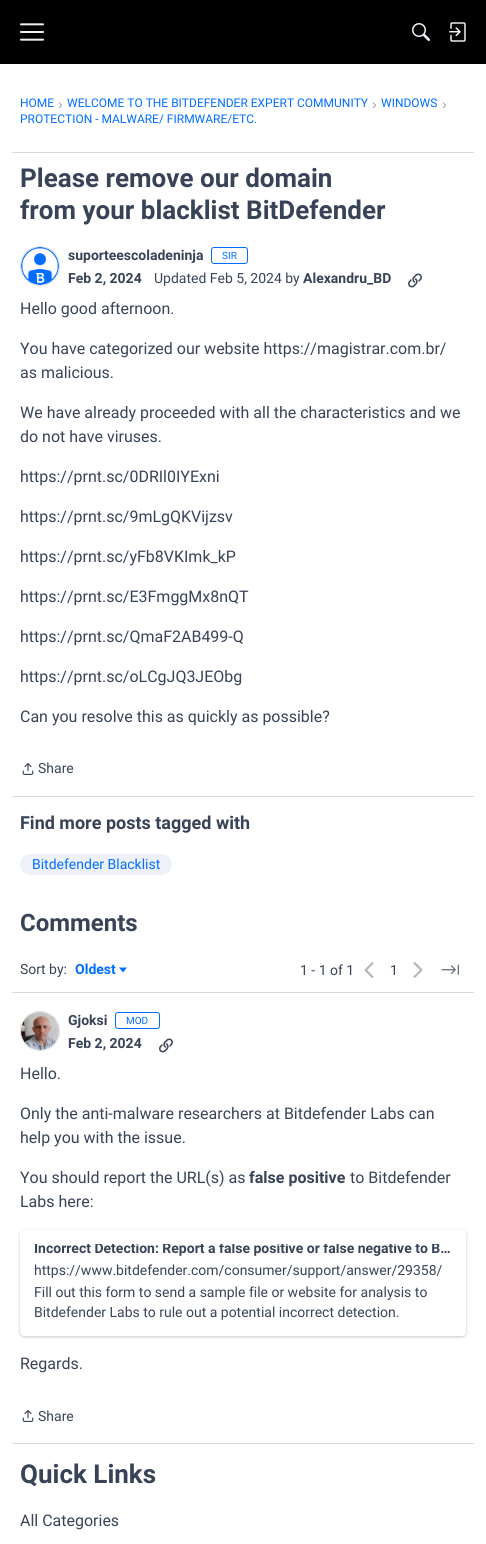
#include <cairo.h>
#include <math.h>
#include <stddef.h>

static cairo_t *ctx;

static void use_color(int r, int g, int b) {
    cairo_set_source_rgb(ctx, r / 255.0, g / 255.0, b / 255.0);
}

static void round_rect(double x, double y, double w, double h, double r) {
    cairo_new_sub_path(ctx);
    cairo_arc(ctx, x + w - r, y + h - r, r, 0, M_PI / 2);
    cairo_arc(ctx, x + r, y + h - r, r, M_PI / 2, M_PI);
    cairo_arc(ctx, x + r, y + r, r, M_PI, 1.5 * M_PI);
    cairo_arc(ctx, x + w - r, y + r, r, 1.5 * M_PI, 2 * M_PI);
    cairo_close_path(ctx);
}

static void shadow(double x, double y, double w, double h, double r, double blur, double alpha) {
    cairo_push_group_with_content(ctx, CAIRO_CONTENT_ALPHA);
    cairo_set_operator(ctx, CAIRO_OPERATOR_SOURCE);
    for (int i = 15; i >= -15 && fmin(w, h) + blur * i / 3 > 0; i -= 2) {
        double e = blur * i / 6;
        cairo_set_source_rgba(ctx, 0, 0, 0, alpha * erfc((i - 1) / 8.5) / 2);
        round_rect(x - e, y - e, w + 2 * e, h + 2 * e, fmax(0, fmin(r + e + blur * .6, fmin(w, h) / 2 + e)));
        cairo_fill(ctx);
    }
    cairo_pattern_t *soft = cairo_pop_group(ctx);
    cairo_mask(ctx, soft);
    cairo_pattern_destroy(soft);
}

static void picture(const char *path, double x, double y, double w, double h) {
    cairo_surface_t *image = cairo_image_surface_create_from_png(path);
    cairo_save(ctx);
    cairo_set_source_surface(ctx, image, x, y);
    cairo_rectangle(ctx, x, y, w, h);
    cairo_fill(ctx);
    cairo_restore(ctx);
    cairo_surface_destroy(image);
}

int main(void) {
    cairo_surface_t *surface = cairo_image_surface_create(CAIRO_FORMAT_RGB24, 486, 1544);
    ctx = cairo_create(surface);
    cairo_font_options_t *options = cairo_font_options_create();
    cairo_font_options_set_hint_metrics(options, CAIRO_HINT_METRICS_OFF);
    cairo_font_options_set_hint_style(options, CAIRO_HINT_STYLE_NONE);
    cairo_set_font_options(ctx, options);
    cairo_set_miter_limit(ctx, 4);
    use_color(255, 255, 255);
    cairo_paint(ctx);
    use_color(0, 0, 0);
    cairo_rectangle(ctx, 0, 0, 486, 64);
    cairo_fill(ctx);
    picture("img1.png", 20, 23, 24, 18);
    picture("img2.png", 412, 23, 18, 18);
    picture("img3.png", 449, 22, 17, 20);
    cairo_select_font_face(ctx, "Roboto", CAIRO_FONT_SLANT_NORMAL, CAIRO_FONT_WEIGHT_NORMAL);
    cairo_set_font_size(ctx, 12);
    use_color(0, 110, 255);
    cairo_move_to(ctx, 20, 107);
    cairo_show_text(ctx, "HOME");
    cairo_select_font_face(ctx, "Liberation Sans", CAIRO_FONT_SLANT_NORMAL, CAIRO_FONT_WEIGHT_NORMAL);
    cairo_set_font_size(ctx, 14);
    use_color(156, 161, 171);
    cairo_move_to(ctx, 58, 109);
    cairo_show_text(ctx, "›");
    cairo_select_font_face(ctx, "Roboto", CAIRO_FONT_SLANT_NORMAL, CAIRO_FONT_WEIGHT_NORMAL);
    cairo_set_font_size(ctx, 12);
    use_color(0, 110, 255);
    cairo_move_to(ctx, 67, 107);
    cairo_show_text(ctx, "WELCOME TO THE BITDEFENDER EXPERT COMMUNITY");
    cairo_select_font_face(ctx, "Liberation Sans", CAIRO_FONT_SLANT_NORMAL, CAIRO_FONT_WEIGHT_NORMAL);
    cairo_set_font_size(ctx, 14);
    use_color(156, 161, 171);
    cairo_move_to(ctx, 372, 109);
    cairo_show_text(ctx, "›");
    cairo_select_font_face(ctx, "Roboto", CAIRO_FONT_SLANT_NORMAL, CAIRO_FONT_WEIGHT_NORMAL);
    cairo_set_font_size(ctx, 12);
    use_color(0, 110, 255);
    cairo_move_to(ctx, 381, 107);
    cairo_show_text(ctx, "WINDOWS");
    cairo_select_font_face(ctx, "Liberation Sans", CAIRO_FONT_SLANT_NORMAL, CAIRO_FONT_WEIGHT_NORMAL);
    cairo_set_font_size(ctx, 14);
    use_color(156, 161, 171);
    cairo_move_to(ctx, 442, 109);
    cairo_show_text(ctx, "›");
    cairo_select_font_face(ctx, "Roboto", CAIRO_FONT_SLANT_NORMAL, CAIRO_FONT_WEIGHT_NORMAL);
    cairo_set_font_size(ctx, 12);
    use_color(0, 110, 255);
    cairo_move_to(ctx, 20, 123);
    cairo_show_text(ctx, "PROTECTION - MALWARE/ FIRMWARE/ETC.");
    use_color(215, 217, 221);
    cairo_rectangle(ctx, 12, 152, 462, 1);
    cairo_fill(ctx);
    cairo_select_font_face(ctx, "Roboto", CAIRO_FONT_SLANT_NORMAL, CAIRO_FONT_WEIGHT_BOLD);
    cairo_set_font_size(ctx, 26);
    use_color(56, 67, 87);
    cairo_move_to(ctx, 20, 187);
    cairo_show_text(ctx, "Please remove our domain");
    cairo_move_to(ctx, 20, 219);
    cairo_show_text(ctx, "from your blacklist BitDefender");
    cairo_new_path(ctx);
    cairo_arc(ctx, 40, 266, 19.5, 0, 2 * M_PI);
    use_color(225, 227, 230);
    cairo_set_line_width(ctx, 1);
    cairo_stroke(ctx);
    picture("img4.png", 21, 247, 38, 38);
    cairo_set_font_size(ctx, 14);
    use_color(56, 67, 87);
    cairo_move_to(ctx, 68, 260);
    cairo_show_text(ctx, "suporteescoladeninja");
    round_rect(211.5, 247.5, 36, 16, 2.5);
    use_color(0, 110, 255);
    cairo_stroke(ctx);
    cairo_select_font_face(ctx, "Roboto", CAIRO_FONT_SLANT_NORMAL, CAIRO_FONT_WEIGHT_NORMAL);
    cairo_set_font_size(ctx, 10);
    cairo_move_to(ctx, 222, 259);
    cairo_show_text(ctx, "SIR");
    cairo_select_font_face(ctx, "Roboto", CAIRO_FONT_SLANT_NORMAL, CAIRO_FONT_WEIGHT_BOLD);
    cairo_set_font_size(ctx, 14);
    use_color(56, 67, 87);
    cairo_move_to(ctx, 68, 283);
    cairo_show_text(ctx, "Feb 2, 2024");
    cairo_select_font_face(ctx, "Roboto", CAIRO_FONT_SLANT_NORMAL, CAIRO_FONT_WEIGHT_NORMAL);
    cairo_move_to(ctx, 154, 283);
    cairo_show_text(ctx, "Updated Feb 5, 2024 by");
    cairo_select_font_face(ctx, "Roboto", CAIRO_FONT_SLANT_NORMAL, CAIRO_FONT_WEIGHT_BOLD);
    cairo_move_to(ctx, 303, 283);
    cairo_show_text(ctx, "Alexandru_BD");
    picture("img5.png", 408, 273, 14, 15);
    cairo_select_font_face(ctx, "Roboto", CAIRO_FONT_SLANT_NORMAL, CAIRO_FONT_WEIGHT_NORMAL);
    cairo_set_font_size(ctx, 16);
    cairo_move_to(ctx, 20, 314);
    cairo_show_text(ctx, "Hello good afternoon.");
    cairo_move_to(ctx, 20, 354);
    cairo_show_text(ctx, "You have categorized our website https://magistrar.com.br/");
    cairo_move_to(ctx, 20, 378);
    cairo_show_text(ctx, "as malicious.");
    cairo_move_to(ctx, 20, 418);
    cairo_show_text(ctx, "We have already proceeded with all the characteristics and we");
    cairo_move_to(ctx, 20, 442);
    cairo_show_text(ctx, "do not have viruses.");
    cairo_move_to(ctx, 20, 482);
    cairo_show_text(ctx, "https://prnt.sc/0DRIl0IYExni");
    cairo_move_to(ctx, 20, 522);
    cairo_show_text(ctx, "https://prnt.sc/9mLgQKVijzsv");
    cairo_move_to(ctx, 20, 562);
    cairo_show_text(ctx, "https://prnt.sc/yFb8VKImk_kP");
    cairo_move_to(ctx, 20, 602);
    cairo_show_text(ctx, "https://prnt.sc/E3FmggMx8nQT");
    cairo_move_to(ctx, 20, 642);
    cairo_show_text(ctx, "https://prnt.sc/QmaF2AB499-Q");
    cairo_move_to(ctx, 20, 682);
    cairo_show_text(ctx, "https://prnt.sc/oLCgJQ3JEObg");
    cairo_move_to(ctx, 20, 722);
    cairo_show_text(ctx, "Can you resolve this as quickly as possible?");
    picture("img6.png", 22, 763, 12, 12);
    cairo_set_font_size(ctx, 14);
    cairo_move_to(ctx, 38, 773);
    cairo_show_text(ctx, "Share");
    use_color(215, 217, 221);
    cairo_rectangle(ctx, 12, 796, 462, 1);
    cairo_fill(ctx);
    cairo_select_font_face(ctx, "Roboto", CAIRO_FONT_SLANT_NORMAL, CAIRO_FONT_WEIGHT_BOLD);
    cairo_set_font_size(ctx, 18);
    use_color(56, 67, 87);
    cairo_move_to(ctx, 20, 829);
    cairo_show_text(ctx, "Find more posts tagged with");
    use_color(239, 241, 249);
    round_rect(20, 854, 152, 21, 10.5);
    cairo_fill(ctx);
    cairo_select_font_face(ctx, "Roboto", CAIRO_FONT_SLANT_NORMAL, CAIRO_FONT_WEIGHT_NORMAL);
    cairo_set_font_size(ctx, 14);
    use_color(0, 110, 255);
    cairo_move_to(ctx, 32, 869);
    cairo_show_text(ctx, "Bitdefender Blacklist");
    cairo_select_font_face(ctx, "Roboto", CAIRO_FONT_SLANT_NORMAL, CAIRO_FONT_WEIGHT_BOLD);
    cairo_set_font_size(ctx, 24);
    use_color(56, 67, 87);
    cairo_move_to(ctx, 20, 931);
    cairo_show_text(ctx, "Comments");
    cairo_select_font_face(ctx, "Roboto", CAIRO_FONT_SLANT_NORMAL, CAIRO_FONT_WEIGHT_NORMAL);
    cairo_set_font_size(ctx, 14);
    cairo_move_to(ctx, 20, 974);
    cairo_show_text(ctx, "Sort by:");
    cairo_select_font_face(ctx, "Roboto", CAIRO_FONT_SLANT_NORMAL, CAIRO_FONT_WEIGHT_BOLD);
    use_color(0, 110, 255);
    cairo_move_to(ctx, 75, 974);
    cairo_show_text(ctx, "Oldest");
    cairo_new_path(ctx);
    cairo_move_to(ctx, 119, 967.5);
    cairo_line_to(ctx, 127, 967.5);
    cairo_line_to(ctx, 123, 972.5);
    cairo_close_path(ctx);
    cairo_fill(ctx);
    cairo_select_font_face(ctx, "Roboto", CAIRO_FONT_SLANT_NORMAL, CAIRO_FONT_WEIGHT_NORMAL);
    use_color(56, 67, 87);
    cairo_move_to(ctx, 300, 975);
    cairo_show_text(ctx, "1 - 1 of 1");
    picture("img7.png", 364, 962, 10, 16);
    cairo_move_to(ctx, 390, 975);
    cairo_show_text(ctx, "1");
    picture("img8.png", 413, 962, 10, 16);
    picture("img9.png", 441, 964, 18, 11);
    use_color(215, 217, 221);
    cairo_rectangle(ctx, 12, 992, 462, 1);
    cairo_fill(ctx);
    cairo_arc(ctx, 40, 1031, 19.5, 0, 2 * M_PI);
    use_color(225, 227, 230);
    cairo_stroke(ctx);
    picture("img10.png", 21, 1012, 38, 38);
    cairo_select_font_face(ctx, "Roboto", CAIRO_FONT_SLANT_NORMAL, CAIRO_FONT_WEIGHT_BOLD);
    use_color(56, 67, 87);
    cairo_move_to(ctx, 68, 1025);
    cairo_show_text(ctx, "Gjoksi");
    round_rect(115.5, 1012.5, 44, 16, 2.5);
    use_color(0, 110, 255);
    cairo_stroke(ctx);
    cairo_select_font_face(ctx, "Roboto", CAIRO_FONT_SLANT_NORMAL, CAIRO_FONT_WEIGHT_NORMAL);
    cairo_set_font_size(ctx, 10);
    cairo_move_to(ctx, 126, 1024);
    cairo_show_text(ctx, "MOD");
    cairo_select_font_face(ctx, "Roboto", CAIRO_FONT_SLANT_NORMAL, CAIRO_FONT_WEIGHT_BOLD);
    cairo_set_font_size(ctx, 14);
    use_color(56, 67, 87);
    cairo_move_to(ctx, 68, 1048);
    cairo_show_text(ctx, "Feb 2, 2024");
    picture("img5.png", 159, 1038, 14, 15);
    cairo_select_font_face(ctx, "Roboto", CAIRO_FONT_SLANT_NORMAL, CAIRO_FONT_WEIGHT_NORMAL);
    cairo_set_font_size(ctx, 16);
    cairo_move_to(ctx, 20, 1079);
    cairo_show_text(ctx, "Hello.");
    cairo_move_to(ctx, 20, 1119);
    cairo_show_text(ctx, "Only the anti-malware researchers at Bitdefender Labs can");
    cairo_move_to(ctx, 20, 1143);
    cairo_show_text(ctx, "help you with the issue.");
    cairo_move_to(ctx, 20, 1183);
    cairo_show_text(ctx, "You should report the URL(s) as");
    cairo_select_font_face(ctx, "Roboto", CAIRO_FONT_SLANT_NORMAL, CAIRO_FONT_WEIGHT_BOLD);
    cairo_move_to(ctx, 249, 1183);
    cairo_show_text(ctx, "false positive");
    cairo_select_font_face(ctx, "Roboto", CAIRO_FONT_SLANT_NORMAL, CAIRO_FONT_WEIGHT_NORMAL);
    cairo_move_to(ctx, 350, 1183);
    cairo_show_text(ctx, "to Bitdefender");
    cairo_move_to(ctx, 20, 1207);
    cairo_show_text(ctx, "Labs here:");
    use_color(0, 0, 0);
    shadow(20, 1231, 446, 106, 4, 1.5, 0.22);
    use_color(255, 255, 255);
    round_rect(20, 1230, 446, 106, 4);
    cairo_fill(ctx);
    cairo_save(ctx);
    cairo_rectangle(ctx, 34, 1244, 418, 14);
    cairo_clip(ctx);
    cairo_select_font_face(ctx, "Roboto", CAIRO_FONT_SLANT_NORMAL, CAIRO_FONT_WEIGHT_BOLD);
    cairo_set_font_size(ctx, 14);
    use_color(56, 67, 87);
    cairo_move_to(ctx, 34, 1253);
    cairo_show_text(ctx, "Incorrect Detection: Report a false positive or false negative to B…");
    cairo_restore(ctx);
    cairo_set_font_size(ctx, 14);
    use_color(56, 67, 87);
    cairo_move_to(ctx, 34, 1275);
    cairo_show_text(ctx, "https://www.bitdefender.com/consumer/support/answer/29358/");
    cairo_move_to(ctx, 34, 1297);
    cairo_show_text(ctx, "Fill out this form to send a sample file or website for analysis to");
    cairo_move_to(ctx, 34, 1317);
    cairo_show_text(ctx, "Bitdefender Labs to rule out a potential incorrect detection.");
    cairo_set_font_size(ctx, 16);
    cairo_move_to(ctx, 20, 1369);
    cairo_show_text(ctx, "Regards.");
    picture("img6.png", 22, 1410, 12, 12);
    cairo_set_font_size(ctx, 14);
    cairo_move_to(ctx, 38, 1421);
    cairo_show_text(ctx, "Share");
    use_color(215, 217, 221);
    cairo_rectangle(ctx, 12, 1443, 462, 1);
    cairo_fill(ctx);
    cairo_select_font_face(ctx, "Roboto", CAIRO_FONT_SLANT_NORMAL, CAIRO_FONT_WEIGHT_BOLD);
    cairo_set_font_size(ctx, 26);
    use_color(56, 67, 87);
    cairo_move_to(ctx, 20, 1483);
    cairo_show_text(ctx, "Quick Links");
    cairo_select_font_face(ctx, "Roboto", CAIRO_FONT_SLANT_NORMAL, CAIRO_FONT_WEIGHT_NORMAL);
    cairo_set_font_size(ctx, 16);
    cairo_move_to(ctx, 20, 1526);
    cairo_show_text(ctx, "All Categories");
    cairo_surface_write_to_png(surface, "result.png");
    cairo_font_options_destroy(options);
    cairo_destroy(ctx);
    cairo_surface_destroy(surface);
    return 0;
}
